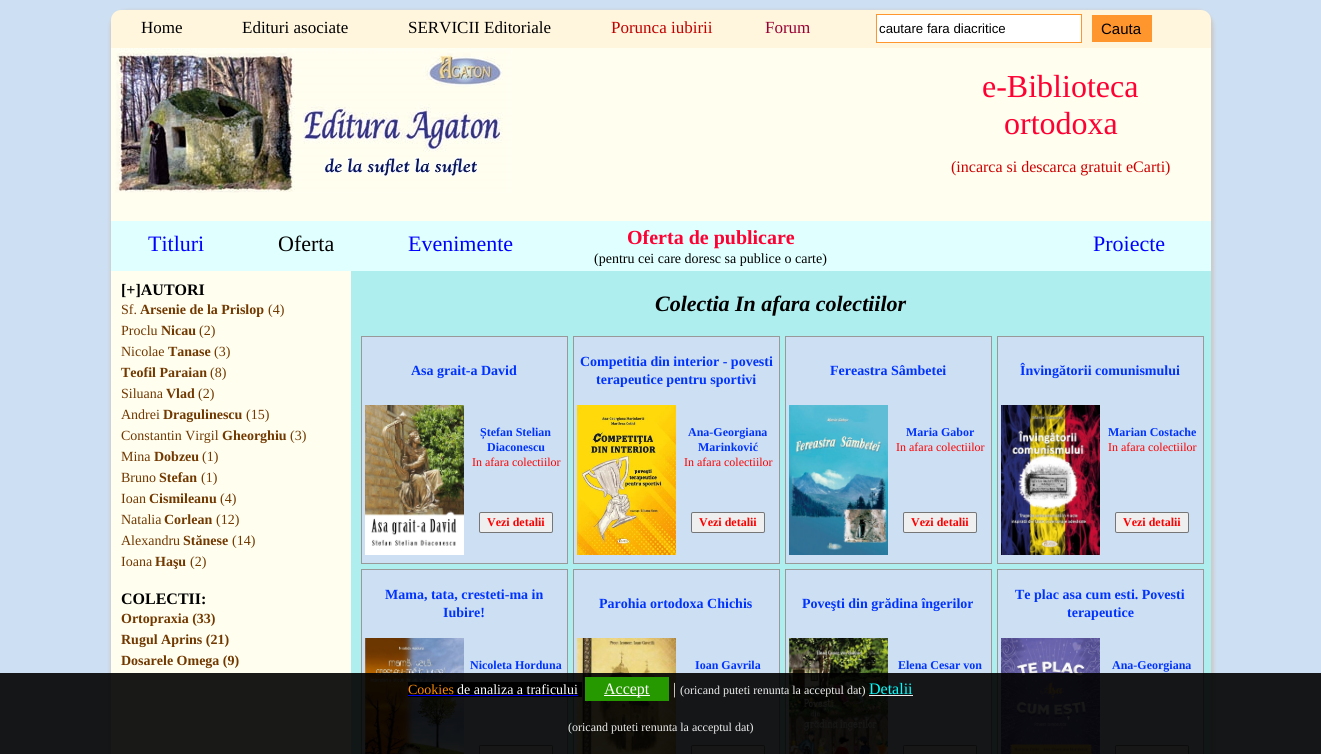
#include <cairo.h>
#include <math.h>
#include <stddef.h>

static cairo_t *ctx;

static void use_color(int r, int g, int b) {
    cairo_set_source_rgb(ctx, r / 255.0, g / 255.0, b / 255.0);
}

static void round_rect(double x, double y, double w, double h, double r) {
    cairo_new_sub_path(ctx);
    cairo_arc(ctx, x + w - r, y + h - r, r, 0, M_PI / 2);
    cairo_arc(ctx, x + r, y + h - r, r, M_PI / 2, M_PI);
    cairo_arc(ctx, x + r, y + r, r, M_PI, 1.5 * M_PI);
    cairo_arc(ctx, x + w - r, y + r, r, 1.5 * M_PI, 2 * M_PI);
    cairo_close_path(ctx);
}

static void shadow(double x, double y, double w, double h, double r, double blur, double alpha) {
    cairo_push_group_with_content(ctx, CAIRO_CONTENT_ALPHA);
    cairo_set_operator(ctx, CAIRO_OPERATOR_SOURCE);
    for (int i = 15; i >= -15 && fmin(w, h) + blur * i / 3 > 0; i -= 2) {
        double e = blur * i / 6;
        cairo_set_source_rgba(ctx, 0, 0, 0, alpha * erfc((i - 1) / 8.5) / 2);
        round_rect(x - e, y - e, w + 2 * e, h + 2 * e, fmax(0, fmin(r + e + blur * .6, fmin(w, h) / 2 + e)));
        cairo_fill(ctx);
    }
    cairo_pattern_t *soft = cairo_pop_group(ctx);
    cairo_mask(ctx, soft);
    cairo_pattern_destroy(soft);
}

static void picture(const char *path, double x, double y, double w, double h) {
    cairo_surface_t *image = cairo_image_surface_create_from_png(path);
    cairo_save(ctx);
    cairo_set_source_surface(ctx, image, x, y);
    cairo_rectangle(ctx, x, y, w, h);
    cairo_fill(ctx);
    cairo_restore(ctx);
    cairo_surface_destroy(image);
}

int main(void) {
    cairo_surface_t *surface = cairo_image_surface_create(CAIRO_FORMAT_RGB24, 1321, 754);
    ctx = cairo_create(surface);
    cairo_font_options_t *options = cairo_font_options_create();
    cairo_font_options_set_hint_metrics(options, CAIRO_HINT_METRICS_OFF);
    cairo_font_options_set_hint_style(options, CAIRO_HINT_STYLE_NONE);
    cairo_set_font_options(ctx, options);
    cairo_set_miter_limit(ctx, 4);
    use_color(205, 223, 242);
    cairo_paint(ctx);
    use_color(204, 204, 204);
    shadow(110, 10, 1104, 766, 17, 1.5, 1);
    use_color(255, 246, 221);
    cairo_new_path(ctx);
    cairo_move_to(ctx, 121, 10);
    cairo_line_to(ctx, 1201, 10);
    cairo_curve_to(ctx, 1206.5, 10, 1211, 14.5, 1211, 20);
    cairo_line_to(ctx, 1211, 48);
    cairo_line_to(ctx, 111, 48);
    cairo_line_to(ctx, 111, 20);
    cairo_curve_to(ctx, 111, 14.5, 115.5, 10, 121, 10);
    cairo_close_path(ctx);
    cairo_fill(ctx);
    cairo_select_font_face(ctx, "Liberation Serif", CAIRO_FONT_SLANT_NORMAL, CAIRO_FONT_WEIGHT_NORMAL);
    cairo_set_font_size(ctx, 17);
    use_color(0, 0, 0);
    cairo_move_to(ctx, 141, 33);
    cairo_show_text(ctx, "Home");
    cairo_move_to(ctx, 242, 33);
    cairo_show_text(ctx, "Edituri asociate");
    cairo_move_to(ctx, 408, 33);
    cairo_show_text(ctx, "SERVICII Editoriale");
    use_color(193, 0, 0);
    cairo_move_to(ctx, 611, 33);
    cairo_show_text(ctx, "Porunca iubirii");
    use_color(153, 0, 51);
    cairo_move_to(ctx, 765, 33);
    cairo_show_text(ctx, "Forum");
    use_color(255, 255, 255);
    cairo_rectangle(ctx, 876.5, 14.5, 205, 28);
    cairo_fill_preserve(ctx);
    use_color(255, 150, 45);
    cairo_set_line_width(ctx, 1);
    cairo_stroke(ctx);
    cairo_select_font_face(ctx, "Liberation Sans", CAIRO_FONT_SLANT_NORMAL, CAIRO_FONT_WEIGHT_NORMAL);
    cairo_set_font_size(ctx, 13.25);
    use_color(0, 0, 0);
    cairo_move_to(ctx, 879, 33);
    cairo_show_text(ctx, "cautare fara diacritice");
    use_color(255, 150, 45);
    cairo_rectangle(ctx, 1092, 15, 60, 27);
    cairo_fill(ctx);
    cairo_set_font_size(ctx, 15);
    use_color(0, 0, 0);
    cairo_move_to(ctx, 1101, 34);
    cairo_show_text(ctx, "Cauta");
    use_color(255, 254, 239);
    cairo_rectangle(ctx, 111, 48, 1100, 173);
    cairo_fill(ctx);
    picture("img1.png", 115, 48, 396, 145);
    cairo_select_font_face(ctx, "Liberation Serif", CAIRO_FONT_SLANT_NORMAL, CAIRO_FONT_WEIGHT_NORMAL);
    cairo_set_font_size(ctx, 32);
    use_color(255, 0, 51);
    cairo_move_to(ctx, 982, 97);
    cairo_show_text(ctx, "e-Biblioteca");
    cairo_move_to(ctx, 1004, 134);
    cairo_show_text(ctx, "ortodoxa");
    cairo_set_font_size(ctx, 16);
    use_color(204, 0, 0);
    cairo_move_to(ctx, 951, 172);
    cairo_show_text(ctx, "(incarca si descarca gratuit eCarti)");
    use_color(224, 255, 255);
    cairo_rectangle(ctx, 111, 221, 1100, 50);
    cairo_fill(ctx);
    cairo_set_font_size(ctx, 22);
    use_color(0, 0, 255);
    cairo_move_to(ctx, 148, 251);
    cairo_show_text(ctx, "Titluri");
    use_color(0, 0, 0);
    cairo_move_to(ctx, 278, 251);
    cairo_show_text(ctx, "Oferta");
    use_color(0, 0, 255);
    cairo_move_to(ctx, 408, 251);
    cairo_show_text(ctx, "Evenimente");
    cairo_select_font_face(ctx, "Liberation Serif", CAIRO_FONT_SLANT_NORMAL, CAIRO_FONT_WEIGHT_BOLD);
    cairo_set_font_size(ctx, 20);
    use_color(255, 0, 51);
    cairo_move_to(ctx, 627, 244);
    cairo_show_text(ctx, "Oferta de publicare");
    cairo_select_font_face(ctx, "Liberation Serif", CAIRO_FONT_SLANT_NORMAL, CAIRO_FONT_WEIGHT_NORMAL);
    cairo_set_font_size(ctx, 14);
    use_color(0, 0, 0);
    cairo_move_to(ctx, 594, 263);
    cairo_show_text(ctx, "(pentru cei care doresc sa publice o carte)");
    cairo_set_font_size(ctx, 22);
    use_color(0, 0, 255);
    cairo_move_to(ctx, 1093, 251);
    cairo_show_text(ctx, "Proiecte");
    use_color(255, 254, 239);
    cairo_rectangle(ctx, 111, 271, 240, 483);
    cairo_fill(ctx);
    cairo_select_font_face(ctx, "Liberation Serif", CAIRO_FONT_SLANT_NORMAL, CAIRO_FONT_WEIGHT_BOLD);
    cairo_set_font_size(ctx, 16);
    use_color(0, 0, 0);
    cairo_move_to(ctx, 121, 295);
    cairo_show_text(ctx, "[+]AUTORI");
    cairo_select_font_face(ctx, "Liberation Serif", CAIRO_FONT_SLANT_NORMAL, CAIRO_FONT_WEIGHT_NORMAL);
    cairo_set_font_size(ctx, 14);
    use_color(113, 56, 0);
    cairo_move_to(ctx, 121, 314);
    cairo_show_text(ctx, "Sf.");
    cairo_select_font_face(ctx, "Liberation Serif", CAIRO_FONT_SLANT_NORMAL, CAIRO_FONT_WEIGHT_BOLD);
    cairo_move_to(ctx, 140, 314);
    cairo_show_text(ctx, "Arsenie de la Prislop");
    cairo_select_font_face(ctx, "Liberation Serif", CAIRO_FONT_SLANT_NORMAL, CAIRO_FONT_WEIGHT_NORMAL);
    cairo_move_to(ctx, 268, 314);
    cairo_show_text(ctx, "(4)");
    cairo_move_to(ctx, 121, 335);
    cairo_show_text(ctx, "Proclu");
    cairo_select_font_face(ctx, "Liberation Serif", CAIRO_FONT_SLANT_NORMAL, CAIRO_FONT_WEIGHT_BOLD);
    cairo_move_to(ctx, 161, 335);
    cairo_show_text(ctx, "Nicau");
    cairo_select_font_face(ctx, "Liberation Serif", CAIRO_FONT_SLANT_NORMAL, CAIRO_FONT_WEIGHT_NORMAL);
    cairo_move_to(ctx, 199, 335);
    cairo_show_text(ctx, "(2)");
    cairo_move_to(ctx, 121, 356);
    cairo_show_text(ctx, "Nicolae");
    cairo_select_font_face(ctx, "Liberation Serif", CAIRO_FONT_SLANT_NORMAL, CAIRO_FONT_WEIGHT_BOLD);
    cairo_move_to(ctx, 168, 356);
    cairo_show_text(ctx, "Tanase");
    cairo_select_font_face(ctx, "Liberation Serif", CAIRO_FONT_SLANT_NORMAL, CAIRO_FONT_WEIGHT_NORMAL);
    cairo_move_to(ctx, 214, 356);
    cairo_show_text(ctx, "(3)");
    cairo_select_font_face(ctx, "Liberation Serif", CAIRO_FONT_SLANT_NORMAL, CAIRO_FONT_WEIGHT_BOLD);
    cairo_move_to(ctx, 121, 377);
    cairo_show_text(ctx, "Teofil Paraian");
    cairo_select_font_face(ctx, "Liberation Serif", CAIRO_FONT_SLANT_NORMAL, CAIRO_FONT_WEIGHT_NORMAL);
    cairo_move_to(ctx, 210, 377);
    cairo_show_text(ctx, "(8)");
    cairo_move_to(ctx, 121, 398);
    cairo_show_text(ctx, "Siluana");
    cairo_select_font_face(ctx, "Liberation Serif", CAIRO_FONT_SLANT_NORMAL, CAIRO_FONT_WEIGHT_BOLD);
    cairo_move_to(ctx, 166, 398);
    cairo_show_text(ctx, "Vlad");
    cairo_select_font_face(ctx, "Liberation Serif", CAIRO_FONT_SLANT_NORMAL, CAIRO_FONT_WEIGHT_NORMAL);
    cairo_move_to(ctx, 198, 398);
    cairo_show_text(ctx, "(2)");
    cairo_move_to(ctx, 121, 419);
    cairo_show_text(ctx, "Andrei");
    cairo_select_font_face(ctx, "Liberation Serif", CAIRO_FONT_SLANT_NORMAL, CAIRO_FONT_WEIGHT_BOLD);
    cairo_move_to(ctx, 163, 419);
    cairo_show_text(ctx, "Dragulinescu");
    cairo_select_font_face(ctx, "Liberation Serif", CAIRO_FONT_SLANT_NORMAL, CAIRO_FONT_WEIGHT_NORMAL);
    cairo_move_to(ctx, 246, 419);
    cairo_show_text(ctx, "(15)");
    cairo_move_to(ctx, 121, 440);
    cairo_show_text(ctx, "Constantin Virgil");
    cairo_select_font_face(ctx, "Liberation Serif", CAIRO_FONT_SLANT_NORMAL, CAIRO_FONT_WEIGHT_BOLD);
    cairo_move_to(ctx, 222, 440);
    cairo_show_text(ctx, "Gheorghiu");
    cairo_select_font_face(ctx, "Liberation Serif", CAIRO_FONT_SLANT_NORMAL, CAIRO_FONT_WEIGHT_NORMAL);
    cairo_move_to(ctx, 290, 440);
    cairo_show_text(ctx, "(3)");
    cairo_move_to(ctx, 121, 461);
    cairo_show_text(ctx, "Mina");
    cairo_select_font_face(ctx, "Liberation Serif", CAIRO_FONT_SLANT_NORMAL, CAIRO_FONT_WEIGHT_BOLD);
    cairo_move_to(ctx, 154, 461);
    cairo_show_text(ctx, "Dobzeu");
    cairo_select_font_face(ctx, "Liberation Serif", CAIRO_FONT_SLANT_NORMAL, CAIRO_FONT_WEIGHT_NORMAL);
    cairo_move_to(ctx, 202, 461);
    cairo_show_text(ctx, "(1)");
    cairo_move_to(ctx, 121, 482);
    cairo_show_text(ctx, "Bruno");
    cairo_select_font_face(ctx, "Liberation Serif", CAIRO_FONT_SLANT_NORMAL, CAIRO_FONT_WEIGHT_BOLD);
    cairo_move_to(ctx, 159, 482);
    cairo_show_text(ctx, "Stefan");
    cairo_select_font_face(ctx, "Liberation Serif", CAIRO_FONT_SLANT_NORMAL, CAIRO_FONT_WEIGHT_NORMAL);
    cairo_move_to(ctx, 201, 482);
    cairo_show_text(ctx, "(1)");
    cairo_move_to(ctx, 121, 503);
    cairo_show_text(ctx, "Ioan");
    cairo_select_font_face(ctx, "Liberation Serif", CAIRO_FONT_SLANT_NORMAL, CAIRO_FONT_WEIGHT_BOLD);
    cairo_move_to(ctx, 149, 503);
    cairo_show_text(ctx, "Cismileanu");
    cairo_select_font_face(ctx, "Liberation Serif", CAIRO_FONT_SLANT_NORMAL, CAIRO_FONT_WEIGHT_NORMAL);
    cairo_move_to(ctx, 220, 503);
    cairo_show_text(ctx, "(4)");
    cairo_move_to(ctx, 121, 524);
    cairo_show_text(ctx, "Natalia");
    cairo_select_font_face(ctx, "Liberation Serif", CAIRO_FONT_SLANT_NORMAL, CAIRO_FONT_WEIGHT_BOLD);
    cairo_move_to(ctx, 164, 524);
    cairo_show_text(ctx, "Corlean");
    cairo_select_font_face(ctx, "Liberation Serif", CAIRO_FONT_SLANT_NORMAL, CAIRO_FONT_WEIGHT_NORMAL);
    cairo_move_to(ctx, 216, 524);
    cairo_show_text(ctx, "(12)");
    cairo_move_to(ctx, 121, 545);
    cairo_show_text(ctx, "Alexandru");
    cairo_select_font_face(ctx, "Liberation Serif", CAIRO_FONT_SLANT_NORMAL, CAIRO_FONT_WEIGHT_BOLD);
    cairo_move_to(ctx, 183, 545);
    cairo_show_text(ctx, "Stănese");
    cairo_select_font_face(ctx, "Liberation Serif", CAIRO_FONT_SLANT_NORMAL, CAIRO_FONT_WEIGHT_NORMAL);
    cairo_move_to(ctx, 232, 545);
    cairo_show_text(ctx, "(14)");
    cairo_move_to(ctx, 121, 566);
    cairo_show_text(ctx, "Ioana");
    cairo_select_font_face(ctx, "Liberation Serif", CAIRO_FONT_SLANT_NORMAL, CAIRO_FONT_WEIGHT_BOLD);
    cairo_move_to(ctx, 155, 566);
    cairo_show_text(ctx, "Haşu");
    cairo_select_font_face(ctx, "Liberation Serif", CAIRO_FONT_SLANT_NORMAL, CAIRO_FONT_WEIGHT_NORMAL);
    cairo_move_to(ctx, 190, 566);
    cairo_show_text(ctx, "(2)");
    cairo_select_font_face(ctx, "Liberation Serif", CAIRO_FONT_SLANT_NORMAL, CAIRO_FONT_WEIGHT_BOLD);
    cairo_set_font_size(ctx, 16);
    use_color(0, 0, 0);
    cairo_move_to(ctx, 121, 604);
    cairo_show_text(ctx, "COLECTII:");
    cairo_set_font_size(ctx, 14);
    use_color(113, 56, 0);
    cairo_move_to(ctx, 121, 623);
    cairo_show_text(ctx, "Ortopraxia (33)");
    cairo_move_to(ctx, 121, 644);
    cairo_show_text(ctx, "Rugul Aprins (21)");
    cairo_move_to(ctx, 121, 665);
    cairo_show_text(ctx, "Dosarele Omega (9)");
    use_color(175, 238, 238);
    cairo_rectangle(ctx, 351, 271, 860, 483);
    cairo_fill(ctx);
    cairo_select_font_face(ctx, "Liberation Serif", CAIRO_FONT_SLANT_ITALIC, CAIRO_FONT_WEIGHT_BOLD);
    cairo_set_font_size(ctx, 22);
    use_color(0, 0, 0);
    cairo_move_to(ctx, 655, 311);
    cairo_show_text(ctx, "Colectia In afara colectiilor");
    use_color(205, 223, 242);
    cairo_rectangle(ctx, 361.5, 336.5, 206, 227);
    cairo_fill_preserve(ctx);
    use_color(153, 153, 153);
    cairo_stroke(ctx);
    cairo_select_font_face(ctx, "Liberation Serif", CAIRO_FONT_SLANT_NORMAL, CAIRO_FONT_WEIGHT_BOLD);
    cairo_set_font_size(ctx, 14);
    use_color(0, 51, 255);
    cairo_move_to(ctx, 411, 375);
    cairo_show_text(ctx, "Asa grait-a David");
    use_color(255, 255, 255);
    cairo_rectangle(ctx, 365, 546, 99, 9);
    cairo_fill(ctx);
    picture("img2.png", 365, 405, 99, 141);
    cairo_set_font_size(ctx, 12);
    use_color(0, 51, 255);
    cairo_move_to(ctx, 480, 436);
    cairo_show_text(ctx, "Ștefan Stelian");
    cairo_move_to(ctx, 487, 451);
    cairo_show_text(ctx, "Diaconescu");
    cairo_select_font_face(ctx, "Liberation Serif", CAIRO_FONT_SLANT_NORMAL, CAIRO_FONT_WEIGHT_NORMAL);
    use_color(255, 0, 0);
    cairo_move_to(ctx, 472, 466);
    cairo_show_text(ctx, "In afara colectiilor");
    use_color(239, 239, 239);
    round_rect(479.5, 512.5, 73, 20, 1.5);
    cairo_fill_preserve(ctx);
    use_color(118, 118, 118);
    cairo_stroke(ctx);
    cairo_select_font_face(ctx, "Liberation Serif", CAIRO_FONT_SLANT_NORMAL, CAIRO_FONT_WEIGHT_BOLD);
    use_color(255, 0, 0);
    cairo_move_to(ctx, 487, 526);
    cairo_show_text(ctx, "Vezi detalii");
    use_color(205, 223, 242);
    cairo_rectangle(ctx, 573.5, 336.5, 206, 227);
    cairo_fill_preserve(ctx);
    use_color(153, 153, 153);
    cairo_stroke(ctx);
    cairo_set_font_size(ctx, 14);
    use_color(0, 51, 255);
    cairo_move_to(ctx, 580, 366);
    cairo_show_text(ctx, "Competitia din interior - povesti");
    cairo_move_to(ctx, 596, 384);
    cairo_show_text(ctx, "terapeutice pentru sportivi");
    picture("img3.png", 577, 405, 99, 150);
    cairo_set_font_size(ctx, 12);
    cairo_move_to(ctx, 688, 436);
    cairo_show_text(ctx, "Ana-Georgiana");
    cairo_move_to(ctx, 698, 451);
    cairo_show_text(ctx, "Marinković");
    cairo_select_font_face(ctx, "Liberation Serif", CAIRO_FONT_SLANT_NORMAL, CAIRO_FONT_WEIGHT_NORMAL);
    use_color(255, 0, 0);
    cairo_move_to(ctx, 684, 466);
    cairo_show_text(ctx, "In afara colectiilor");
    use_color(239, 239, 239);
    round_rect(691.5, 512.5, 73, 20, 1.5);
    cairo_fill_preserve(ctx);
    use_color(118, 118, 118);
    cairo_stroke(ctx);
    cairo_select_font_face(ctx, "Liberation Serif", CAIRO_FONT_SLANT_NORMAL, CAIRO_FONT_WEIGHT_BOLD);
    use_color(255, 0, 0);
    cairo_move_to(ctx, 699, 526);
    cairo_show_text(ctx, "Vezi detalii");
    use_color(205, 223, 242);
    cairo_rectangle(ctx, 785.5, 336.5, 206, 227);
    cairo_fill_preserve(ctx);
    use_color(153, 153, 153);
    cairo_stroke(ctx);
    cairo_set_font_size(ctx, 14);
    use_color(0, 51, 255);
    cairo_move_to(ctx, 830, 375);
    cairo_show_text(ctx, "Fereastra Sâmbetei");
    picture("img4.png", 789, 405, 99, 150);
    cairo_set_font_size(ctx, 12);
    cairo_move_to(ctx, 906, 436);
    cairo_show_text(ctx, "Maria Gabor");
    cairo_select_font_face(ctx, "Liberation Serif", CAIRO_FONT_SLANT_NORMAL, CAIRO_FONT_WEIGHT_NORMAL);
    use_color(255, 0, 0);
    cairo_move_to(ctx, 896, 451);
    cairo_show_text(ctx, "In afara colectiilor");
    use_color(239, 239, 239);
    round_rect(903.5, 512.5, 73, 20, 1.5);
    cairo_fill_preserve(ctx);
    use_color(118, 118, 118);
    cairo_stroke(ctx);
    cairo_select_font_face(ctx, "Liberation Serif", CAIRO_FONT_SLANT_NORMAL, CAIRO_FONT_WEIGHT_BOLD);
    use_color(255, 0, 0);
    cairo_move_to(ctx, 911, 526);
    cairo_show_text(ctx, "Vezi detalii");
    use_color(205, 223, 242);
    cairo_rectangle(ctx, 997.5, 336.5, 206, 227);
    cairo_fill_preserve(ctx);
    use_color(153, 153, 153);
    cairo_stroke(ctx);
    cairo_set_font_size(ctx, 14);
    use_color(0, 51, 255);
    cairo_move_to(ctx, 1020, 375);
    cairo_show_text(ctx, "Învingătorii comunismului");
    picture("img5.png", 1001, 405, 99, 150);
    cairo_set_font_size(ctx, 12);
    cairo_move_to(ctx, 1108, 436);
    cairo_show_text(ctx, "Marian Costache");
    cairo_select_font_face(ctx, "Liberation Serif", CAIRO_FONT_SLANT_NORMAL, CAIRO_FONT_WEIGHT_NORMAL);
    use_color(255, 0, 0);
    cairo_move_to(ctx, 1108, 451);
    cairo_show_text(ctx, "In afara colectiilor");
    use_color(239, 239, 239);
    round_rect(1115.5, 512.5, 73, 20, 1.5);
    cairo_fill_preserve(ctx);
    use_color(118, 118, 118);
    cairo_stroke(ctx);
    cairo_select_font_face(ctx, "Liberation Serif", CAIRO_FONT_SLANT_NORMAL, CAIRO_FONT_WEIGHT_BOLD);
    use_color(255, 0, 0);
    cairo_move_to(ctx, 1123, 526);
    cairo_show_text(ctx, "Vezi detalii");
    use_color(205, 223, 242);
    cairo_rectangle(ctx, 361.5, 569.5, 206, 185);
    cairo_fill_preserve(ctx);
    use_color(153, 153, 153);
    cairo_stroke(ctx);
    cairo_set_font_size(ctx, 14);
    use_color(0, 51, 255);
    cairo_move_to(ctx, 385, 599);
    cairo_show_text(ctx, "Mama, tata, cresteti-ma in");
    cairo_move_to(ctx, 443, 617);
    cairo_show_text(ctx, "Iubire!");
    picture("img6.png", 365, 638, 99, 116);
    cairo_set_font_size(ctx, 12);
    cairo_move_to(ctx, 470, 669);
    cairo_show_text(ctx, "Nicoleta Horduna");
    use_color(239, 239, 239);
    round_rect(479.5, 745.5, 73, 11, 1.5);
    cairo_fill_preserve(ctx);
    use_color(118, 118, 118);
    cairo_stroke(ctx);
    use_color(205, 223, 242);
    cairo_rectangle(ctx, 573.5, 569.5, 206, 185);
    cairo_fill_preserve(ctx);
    use_color(153, 153, 153);
    cairo_stroke(ctx);
    cairo_set_font_size(ctx, 14);
    use_color(0, 51, 255);
    cairo_move_to(ctx, 599, 608);
    cairo_show_text(ctx, "Parohia ortodoxa Chichis");
    picture("img7.png", 577, 638, 99, 116);
    cairo_set_font_size(ctx, 12);
    cairo_move_to(ctx, 695, 669);
    cairo_show_text(ctx, "Ioan Gavrila");
    use_color(239, 239, 239);
    round_rect(691.5, 745.5, 73, 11, 1.5);
    cairo_fill_preserve(ctx);
    use_color(118, 118, 118);
    cairo_stroke(ctx);
    use_color(205, 223, 242);
    cairo_rectangle(ctx, 785.5, 569.5, 206, 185);
    cairo_fill_preserve(ctx);
    use_color(153, 153, 153);
    cairo_stroke(ctx);
    cairo_set_font_size(ctx, 14);
    use_color(0, 51, 255);
    cairo_move_to(ctx, 802, 608);
    cairo_show_text(ctx, "Poveşti din grădina îngerilor");
    picture("img8.png", 789, 638, 99, 116);
    cairo_set_font_size(ctx, 12);
    cairo_move_to(ctx, 898, 669);
    cairo_show_text(ctx, "Elena Cesar von");
    use_color(239, 239, 239);
    round_rect(903.5, 745.5, 73, 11, 1.5);
    cairo_fill_preserve(ctx);
    use_color(118, 118, 118);
    cairo_stroke(ctx);
    use_color(205, 223, 242);
    cairo_rectangle(ctx, 997.5, 569.5, 206, 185);
    cairo_fill_preserve(ctx);
    use_color(153, 153, 153);
    cairo_stroke(ctx);
    cairo_set_font_size(ctx, 14);
    use_color(0, 51, 255);
    cairo_move_to(ctx, 1015, 599);
    cairo_show_text(ctx, "Te plac asa cum esti. Povesti");
    cairo_move_to(ctx, 1067, 617);
    cairo_show_text(ctx, "terapeutice");
    picture("img9.png", 1001, 638, 99, 116);
    cairo_set_font_size(ctx, 12);
    cairo_move_to(ctx, 1112, 669);
    cairo_show_text(ctx, "Ana-Georgiana");
    use_color(239, 239, 239);
    round_rect(1115.5, 745.5, 73, 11, 1.5);
    cairo_fill_preserve(ctx);
    use_color(118, 118, 118);
    cairo_stroke(ctx);
    cairo_set_source_rgba(ctx, 0, 0, 0, 0.9);
    cairo_rectangle(ctx, 0, 673, 1321, 81);
    cairo_fill(ctx);
    use_color(0, 0, 0);
    cairo_rectangle(ctx, 408, 682, 170, 15);
    cairo_fill(ctx);
    cairo_select_font_face(ctx, "Liberation Serif", CAIRO_FONT_SLANT_NORMAL, CAIRO_FONT_WEIGHT_NORMAL);
    cairo_set_font_size(ctx, 14);
    use_color(255, 140, 0);
    cairo_move_to(ctx, 408, 694);
    cairo_show_text(ctx, "Cookies");
    use_color(0, 0, 238);
    cairo_rectangle(ctx, 408, 695, 170, 1);
    cairo_fill(ctx);
    use_color(255, 255, 255);
    cairo_move_to(ctx, 457, 694);
    cairo_show_text(ctx, "de analiza a traficului");
    use_color(0, 0, 0);
    cairo_rectangle(ctx, 578, 682, 4, 15);
    cairo_fill(ctx);
    use_color(38, 153, 0);
    cairo_rectangle(ctx, 585, 677, 84, 24);
    cairo_fill(ctx);
    use_color(255, 255, 255);
    cairo_rectangle(ctx, 604, 695, 46, 1);
    cairo_fill(ctx);
    cairo_set_font_size(ctx, 16);
    cairo_move_to(ctx, 604, 694);
    cairo_show_text(ctx, "Accept");
    use_color(237, 237, 237);
    cairo_move_to(ctx, 673, 694);
    cairo_show_text(ctx, "|");
    cairo_set_font_size(ctx, 12);
    cairo_move_to(ctx, 680, 694);
    cairo_show_text(ctx, "(oricand puteti renunta la acceptul dat)");
    cairo_rectangle(ctx, 869, 695, 44, 1);
    cairo_fill(ctx);
    cairo_set_font_size(ctx, 16);
    use_color(0, 255, 255);
    cairo_move_to(ctx, 869, 694);
    cairo_show_text(ctx, "Detalii");
    cairo_set_font_size(ctx, 12);
    use_color(237, 237, 237);
    cairo_move_to(ctx, 568, 731);
    cairo_show_text(ctx, "(oricand puteti renunta la acceptul dat)");
    cairo_surface_write_to_png(surface, "result.png");
    cairo_font_options_destroy(options);
    cairo_destroy(ctx);
    cairo_surface_destroy(surface);
    return 0;
}
